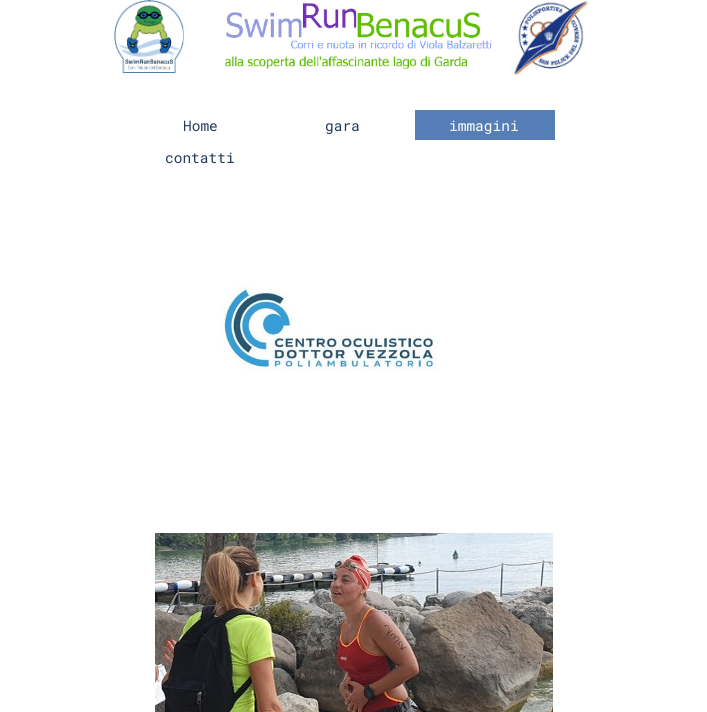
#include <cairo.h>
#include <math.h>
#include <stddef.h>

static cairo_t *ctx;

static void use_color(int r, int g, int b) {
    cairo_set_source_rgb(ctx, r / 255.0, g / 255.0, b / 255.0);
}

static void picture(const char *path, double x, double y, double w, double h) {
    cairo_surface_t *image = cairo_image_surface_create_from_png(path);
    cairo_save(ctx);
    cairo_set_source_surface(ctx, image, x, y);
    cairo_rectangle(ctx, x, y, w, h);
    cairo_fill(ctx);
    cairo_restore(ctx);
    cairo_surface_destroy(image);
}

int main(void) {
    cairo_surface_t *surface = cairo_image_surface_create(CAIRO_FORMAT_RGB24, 707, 712);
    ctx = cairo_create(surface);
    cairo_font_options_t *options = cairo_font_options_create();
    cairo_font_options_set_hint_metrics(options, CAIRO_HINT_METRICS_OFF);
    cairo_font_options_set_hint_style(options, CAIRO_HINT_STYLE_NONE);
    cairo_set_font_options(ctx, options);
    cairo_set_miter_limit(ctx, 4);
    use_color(255, 255, 255);
    cairo_paint(ctx);
    picture("img1.png", 114, 0, 70, 73);
    picture("img2.png", 225, 3, 267, 66);
    picture("img3.png", 514, 1, 75, 75);
    cairo_select_font_face(ctx, "Roboto Mono", CAIRO_FONT_SLANT_NORMAL, CAIRO_FONT_WEIGHT_NORMAL);
    cairo_set_font_size(ctx, 14.5);
    use_color(37, 58, 88);
    cairo_move_to(ctx, 183, 131);
    cairo_show_text(ctx, "Home");
    cairo_move_to(ctx, 325, 131);
    cairo_show_text(ctx, "gara");
    use_color(86, 126, 182);
    cairo_rectangle(ctx, 415, 110, 140, 30);
    cairo_fill(ctx);
    use_color(255, 255, 255);
    cairo_move_to(ctx, 449, 131);
    cairo_show_text(ctx, "immagini");
    use_color(37, 58, 88);
    cairo_move_to(ctx, 165, 163);
    cairo_show_text(ctx, "contatti");
    picture("img4.png", 217, 284, 220, 86);
    picture("img5.png", 155, 533, 398, 179);
    cairo_surface_write_to_png(surface, "result.png");
    cairo_font_options_destroy(options);
    cairo_destroy(ctx);
    cairo_surface_destroy(surface);
    return 0;
}
